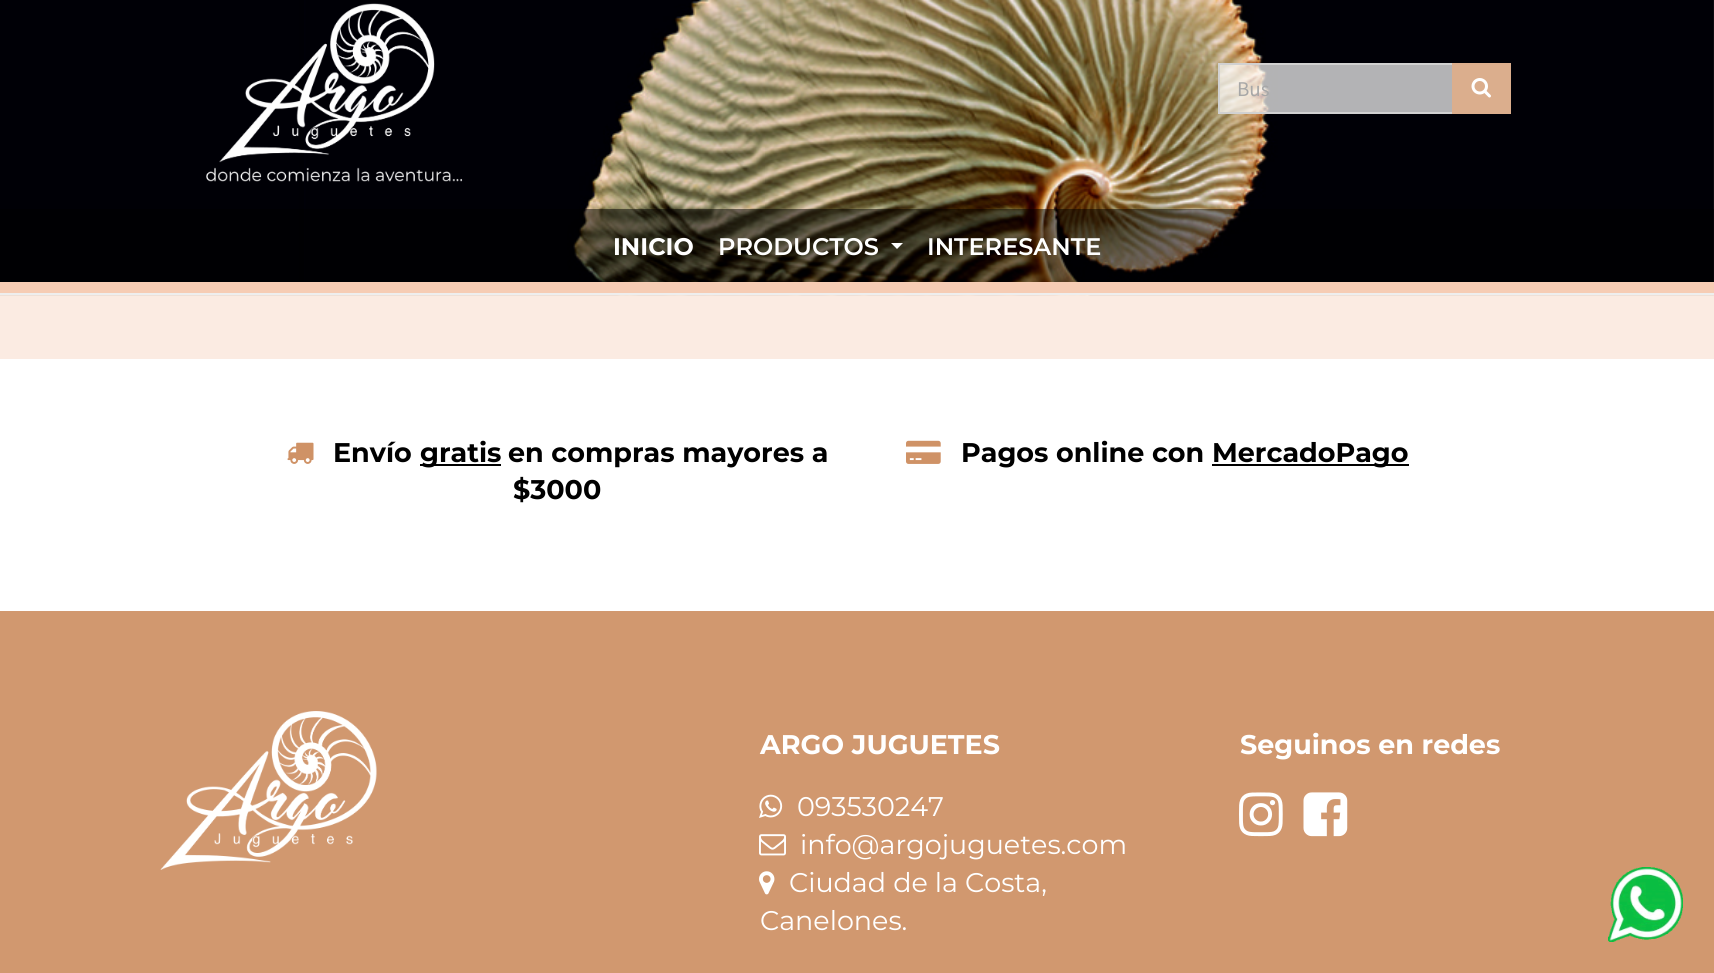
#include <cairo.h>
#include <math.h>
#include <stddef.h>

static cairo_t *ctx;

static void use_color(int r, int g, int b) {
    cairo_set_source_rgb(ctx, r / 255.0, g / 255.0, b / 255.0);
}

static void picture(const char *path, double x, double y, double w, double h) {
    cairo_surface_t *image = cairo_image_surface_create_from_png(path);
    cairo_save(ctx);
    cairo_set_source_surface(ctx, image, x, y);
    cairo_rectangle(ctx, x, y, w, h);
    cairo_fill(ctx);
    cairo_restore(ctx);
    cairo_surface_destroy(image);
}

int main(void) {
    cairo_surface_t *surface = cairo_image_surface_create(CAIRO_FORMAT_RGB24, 1714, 973);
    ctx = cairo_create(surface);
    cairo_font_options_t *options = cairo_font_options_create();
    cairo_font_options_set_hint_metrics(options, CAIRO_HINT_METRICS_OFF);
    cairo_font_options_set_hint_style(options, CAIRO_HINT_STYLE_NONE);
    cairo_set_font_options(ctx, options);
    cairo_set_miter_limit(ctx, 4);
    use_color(255, 255, 255);
    cairo_paint(ctx);
    use_color(251, 235, 226);
    cairo_rectangle(ctx, 0, 0, 1714, 359);
    cairo_fill(ctx);
    picture("img1.png", 0, 0, 1714, 296);
    use_color(238, 238, 238);
    cairo_rectangle(ctx, 0, 293, 1714, 2);
    cairo_fill(ctx);
    picture("img2.png", 206, 3, 257, 179);
    cairo_set_source_rgba(ctx, 1, 1, 1, 0.7);
    cairo_rectangle(ctx, 1219, 64, 234, 49);
    cairo_fill_preserve(ctx);
    use_color(209, 209, 209);
    cairo_stroke(ctx);
    cairo_select_font_face(ctx, "Source Sans Pro", CAIRO_FONT_SLANT_NORMAL, CAIRO_FONT_WEIGHT_NORMAL);
    cairo_set_font_size(ctx, 21);
    use_color(167, 167, 167);
    cairo_move_to(ctx, 1237, 96);
    cairo_show_text(ctx, "Bus");
    use_color(219, 174, 141);
    cairo_rectangle(ctx, 1452, 63, 59, 51);
    cairo_fill(ctx);
    picture("img3.png", 1471, 78, 20, 20);
    cairo_set_source_rgba(ctx, 0, 0, 0, 0.5);
    cairo_rectangle(ctx, 0, 209, 1714, 73);
    cairo_fill(ctx);
    use_color(246, 204, 180);
    cairo_rectangle(ctx, 0, 282, 1714, 11);
    cairo_fill(ctx);
    cairo_select_font_face(ctx, "Montserrat", CAIRO_FONT_SLANT_NORMAL, CAIRO_FONT_WEIGHT_BOLD);
    cairo_set_font_size(ctx, 24);
    use_color(255, 255, 255);
    cairo_move_to(ctx, 613, 255);
    cairo_show_text(ctx, "INICIO");
    cairo_select_font_face(ctx, "Montserrat SemiBold", CAIRO_FONT_SLANT_NORMAL, CAIRO_FONT_WEIGHT_NORMAL);
    cairo_move_to(ctx, 718, 255);
    cairo_show_text(ctx, "PRODUCTOS");
    cairo_new_path(ctx);
    cairo_move_to(ctx, 891, 243);
    cairo_line_to(ctx, 903, 243);
    cairo_line_to(ctx, 897, 249);
    cairo_close_path(ctx);
    cairo_fill(ctx);
    cairo_move_to(ctx, 927, 255);
    cairo_show_text(ctx, "INTERESANTE");
    picture("img4.png", 287, 442, 27, 22);
    cairo_select_font_face(ctx, "Montserrat", CAIRO_FONT_SLANT_NORMAL, CAIRO_FONT_WEIGHT_BOLD);
    cairo_set_font_size(ctx, 27);
    use_color(0, 0, 0);
    cairo_move_to(ctx, 333, 462);
    cairo_show_text(ctx, "Envío");
    cairo_rectangle(ctx, 420, 464, 81, 2);
    cairo_fill(ctx);
    cairo_move_to(ctx, 420, 462);
    cairo_show_text(ctx, "gratis");
    cairo_move_to(ctx, 508, 462);
    cairo_show_text(ctx, "en compras mayores a");
    cairo_move_to(ctx, 513, 499);
    cairo_show_text(ctx, "$3000");
    picture("img5.png", 906, 440, 35, 24);
    cairo_move_to(ctx, 961, 462);
    cairo_show_text(ctx, "Pagos online con");
    cairo_rectangle(ctx, 1212, 464, 197, 2);
    cairo_fill(ctx);
    cairo_move_to(ctx, 1212, 462);
    cairo_show_text(ctx, "MercadoPago");
    use_color(209, 152, 111);
    cairo_rectangle(ctx, 0, 611, 1714, 362);
    cairo_fill(ctx);
    picture("img6.png", 160, 711, 217, 159);
    use_color(255, 255, 255);
    cairo_move_to(ctx, 760, 754);
    cairo_show_text(ctx, "ARGO JUGUETES");
    picture("img7.png", 759, 794, 24, 24);
    cairo_select_font_face(ctx, "Montserrat", CAIRO_FONT_SLANT_NORMAL, CAIRO_FONT_WEIGHT_NORMAL);
    cairo_move_to(ctx, 797, 816);
    cairo_show_text(ctx, "093530247");
    picture("img8.png", 759, 834, 27, 22);
    cairo_move_to(ctx, 800, 854);
    cairo_show_text(ctx, "info@argojuguetes.com");
    picture("img9.png", 759, 871, 16, 24);
    cairo_move_to(ctx, 789, 892);
    cairo_show_text(ctx, "Ciudad de la Costa,");
    cairo_move_to(ctx, 760, 930);
    cairo_show_text(ctx, "Canelones.");
    cairo_select_font_face(ctx, "Montserrat", CAIRO_FONT_SLANT_NORMAL, CAIRO_FONT_WEIGHT_BOLD);
    cairo_move_to(ctx, 1240, 754);
    cairo_show_text(ctx, "Seguinos en redes");
    picture("img10.png", 1239, 792, 44, 45);
    picture("img11.png", 1303, 792, 45, 45);
    picture("img12.png", 1608, 867, 75, 75);
    cairo_surface_write_to_png(surface, "result.png");
    cairo_font_options_destroy(options);
    cairo_destroy(ctx);
    cairo_surface_destroy(surface);
    return 0;
}
